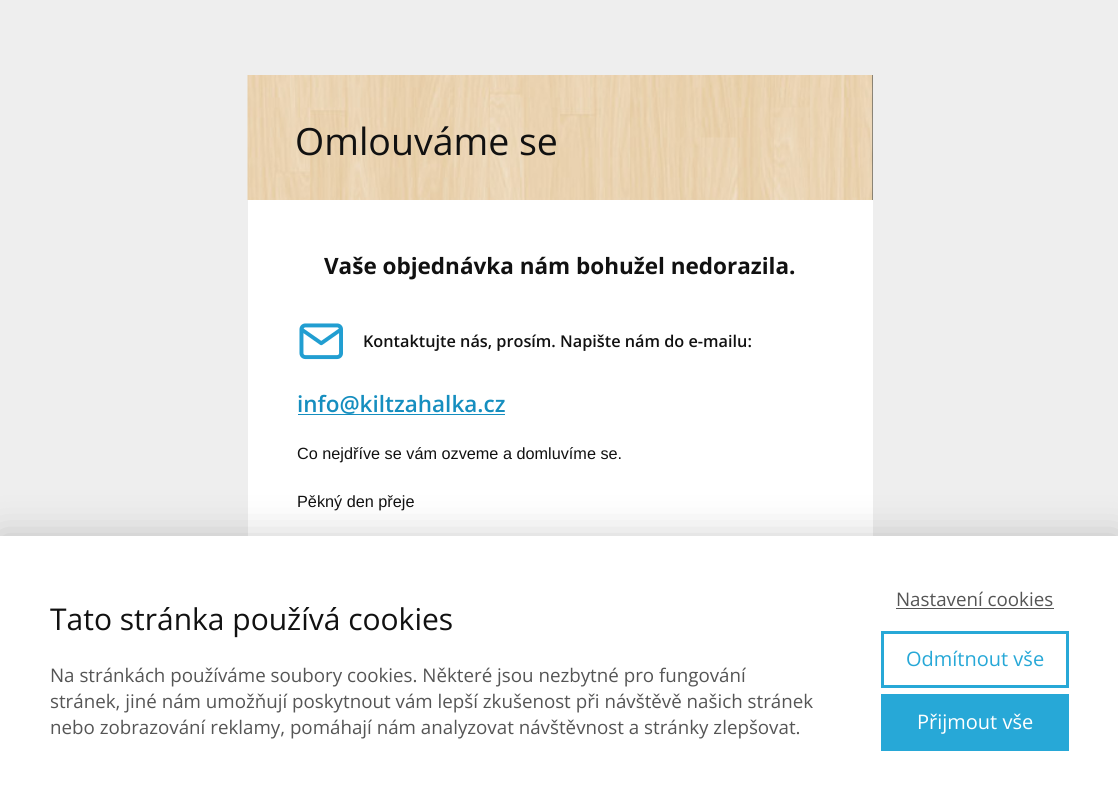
#include <cairo.h>
#include <math.h>
#include <stddef.h>

static cairo_t *ctx;

static void use_color(int r, int g, int b) {
    cairo_set_source_rgb(ctx, r / 255.0, g / 255.0, b / 255.0);
}

static void round_rect(double x, double y, double w, double h, double r) {
    cairo_new_sub_path(ctx);
    cairo_arc(ctx, x + w - r, y + h - r, r, 0, M_PI / 2);
    cairo_arc(ctx, x + r, y + h - r, r, M_PI / 2, M_PI);
    cairo_arc(ctx, x + r, y + r, r, M_PI, 1.5 * M_PI);
    cairo_arc(ctx, x + w - r, y + r, r, 1.5 * M_PI, 2 * M_PI);
    cairo_close_path(ctx);
}

static void shadow(double x, double y, double w, double h, double r, double blur, double alpha) {
    cairo_push_group_with_content(ctx, CAIRO_CONTENT_ALPHA);
    cairo_set_operator(ctx, CAIRO_OPERATOR_SOURCE);
    for (int i = 15; i >= -15 && fmin(w, h) + blur * i / 3 > 0; i -= 2) {
        double e = blur * i / 6;
        cairo_set_source_rgba(ctx, 0, 0, 0, alpha * erfc((i - 1) / 8.5) / 2);
        round_rect(x - e, y - e, w + 2 * e, h + 2 * e, fmax(0, fmin(r + e + blur * .6, fmin(w, h) / 2 + e)));
        cairo_fill(ctx);
    }
    cairo_pattern_t *soft = cairo_pop_group(ctx);
    cairo_mask(ctx, soft);
    cairo_pattern_destroy(soft);
}

static void picture(const char *path, double x, double y, double w, double h) {
    cairo_surface_t *image = cairo_image_surface_create_from_png(path);
    cairo_save(ctx);
    cairo_set_source_surface(ctx, image, x, y);
    cairo_rectangle(ctx, x, y, w, h);
    cairo_fill(ctx);
    cairo_restore(ctx);
    cairo_surface_destroy(image);
}

int main(void) {
    cairo_surface_t *surface = cairo_image_surface_create(CAIRO_FORMAT_RGB24, 1118, 801);
    ctx = cairo_create(surface);
    cairo_font_options_t *options = cairo_font_options_create();
    cairo_font_options_set_hint_metrics(options, CAIRO_HINT_METRICS_OFF);
    cairo_font_options_set_hint_style(options, CAIRO_HINT_STYLE_NONE);
    cairo_set_font_options(ctx, options);
    cairo_set_miter_limit(ctx, 4);
    use_color(238, 238, 238);
    cairo_paint(ctx);
    use_color(42, 50, 54);
    cairo_rectangle(ctx, 872, 75, 1, 125);
    cairo_fill(ctx);
    picture("img1.png", 247, 75, 626, 125);
    cairo_select_font_face(ctx, "Open Sans", CAIRO_FONT_SLANT_NORMAL, CAIRO_FONT_WEIGHT_NORMAL);
    cairo_set_font_size(ctx, 37.5);
    use_color(17, 17, 17);
    cairo_move_to(ctx, 295, 155);
    cairo_show_text(ctx, "Omlouváme se");
    use_color(255, 255, 255);
    cairo_rectangle(ctx, 248, 200, 625, 336);
    cairo_fill(ctx);
    cairo_select_font_face(ctx, "Open Sans", CAIRO_FONT_SLANT_NORMAL, CAIRO_FONT_WEIGHT_BOLD);
    cairo_set_font_size(ctx, 22.5);
    use_color(17, 17, 17);
    cairo_move_to(ctx, 324, 274);
    cairo_show_text(ctx, "Vaše objednávka nám bohužel nedorazila.");
    picture("img2.png", 299, 323, 44, 37);
    cairo_select_font_face(ctx, "Open Sans SemiBold", CAIRO_FONT_SLANT_NORMAL, CAIRO_FONT_WEIGHT_NORMAL);
    cairo_set_font_size(ctx, 16.25);
    cairo_move_to(ctx, 363, 347);
    cairo_show_text(ctx, "Kontaktujte nás, prosím. Napište nám do e-mailu:");
    cairo_set_font_size(ctx, 22.5);
    use_color(21, 142, 191);
    cairo_move_to(ctx, 297, 412);
    cairo_show_text(ctx, "info@kiltzahalka.cz");
    cairo_rectangle(ctx, 298, 414, 207, 1);
    cairo_fill(ctx);
    cairo_select_font_face(ctx, "Liberation Sans", CAIRO_FONT_SLANT_NORMAL, CAIRO_FONT_WEIGHT_NORMAL);
    cairo_set_font_size(ctx, 16.25);
    use_color(17, 17, 17);
    cairo_move_to(ctx, 297, 459);
    cairo_show_text(ctx, "Co nejdříve se vám ozveme a domluvíme se.");
    cairo_move_to(ctx, 297, 507);
    cairo_show_text(ctx, "Pěkný den přeje");
    use_color(0, 0, 0);
    shadow(0, 536, 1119, 265, 0, 19, 0.2);
    use_color(255, 255, 255);
    cairo_rectangle(ctx, 0, 536, 1118, 265);
    cairo_fill(ctx);
    cairo_select_font_face(ctx, "Open Sans", CAIRO_FONT_SLANT_NORMAL, CAIRO_FONT_WEIGHT_NORMAL);
    cairo_set_font_size(ctx, 30);
    use_color(17, 17, 17);
    cairo_move_to(ctx, 50, 630);
    cairo_show_text(ctx, "Tato stránka používá cookies");
    cairo_set_font_size(ctx, 18.75);
    use_color(85, 85, 85);
    cairo_move_to(ctx, 50, 682);
    cairo_show_text(ctx, "Na stránkách používáme soubory cookies. Některé jsou nezbytné pro fungování");
    cairo_move_to(ctx, 50, 708);
    cairo_show_text(ctx, "stránek, jiné nám umožňují poskytnout vám lepší zkušenost při návštěvě našich stránek");
    cairo_move_to(ctx, 50, 734);
    cairo_show_text(ctx, "nebo zobrazování reklamy, pomáhají nám analyzovat návštěvnost a stránky zlepšovat.");
    cairo_move_to(ctx, 896, 606);
    cairo_show_text(ctx, "Nastavení cookies");
    cairo_rectangle(ctx, 896, 608, 158, 1);
    cairo_fill(ctx);
    cairo_rectangle(ctx, 882.5, 632.5, 185, 54);
    use_color(39, 168, 215);
    cairo_set_line_width(ctx, 3);
    cairo_stroke(ctx);
    cairo_set_font_size(ctx, 20);
    cairo_move_to(ctx, 906, 666);
    cairo_show_text(ctx, "Odmítnout vše");
    cairo_rectangle(ctx, 881, 694, 188, 57);
    cairo_fill(ctx);
    use_color(255, 255, 255);
    cairo_move_to(ctx, 917, 729);
    cairo_show_text(ctx, "Přijmout vše");
    cairo_surface_write_to_png(surface, "result.png");
    cairo_font_options_destroy(options);
    cairo_destroy(ctx);
    cairo_surface_destroy(surface);
    return 0;
}
